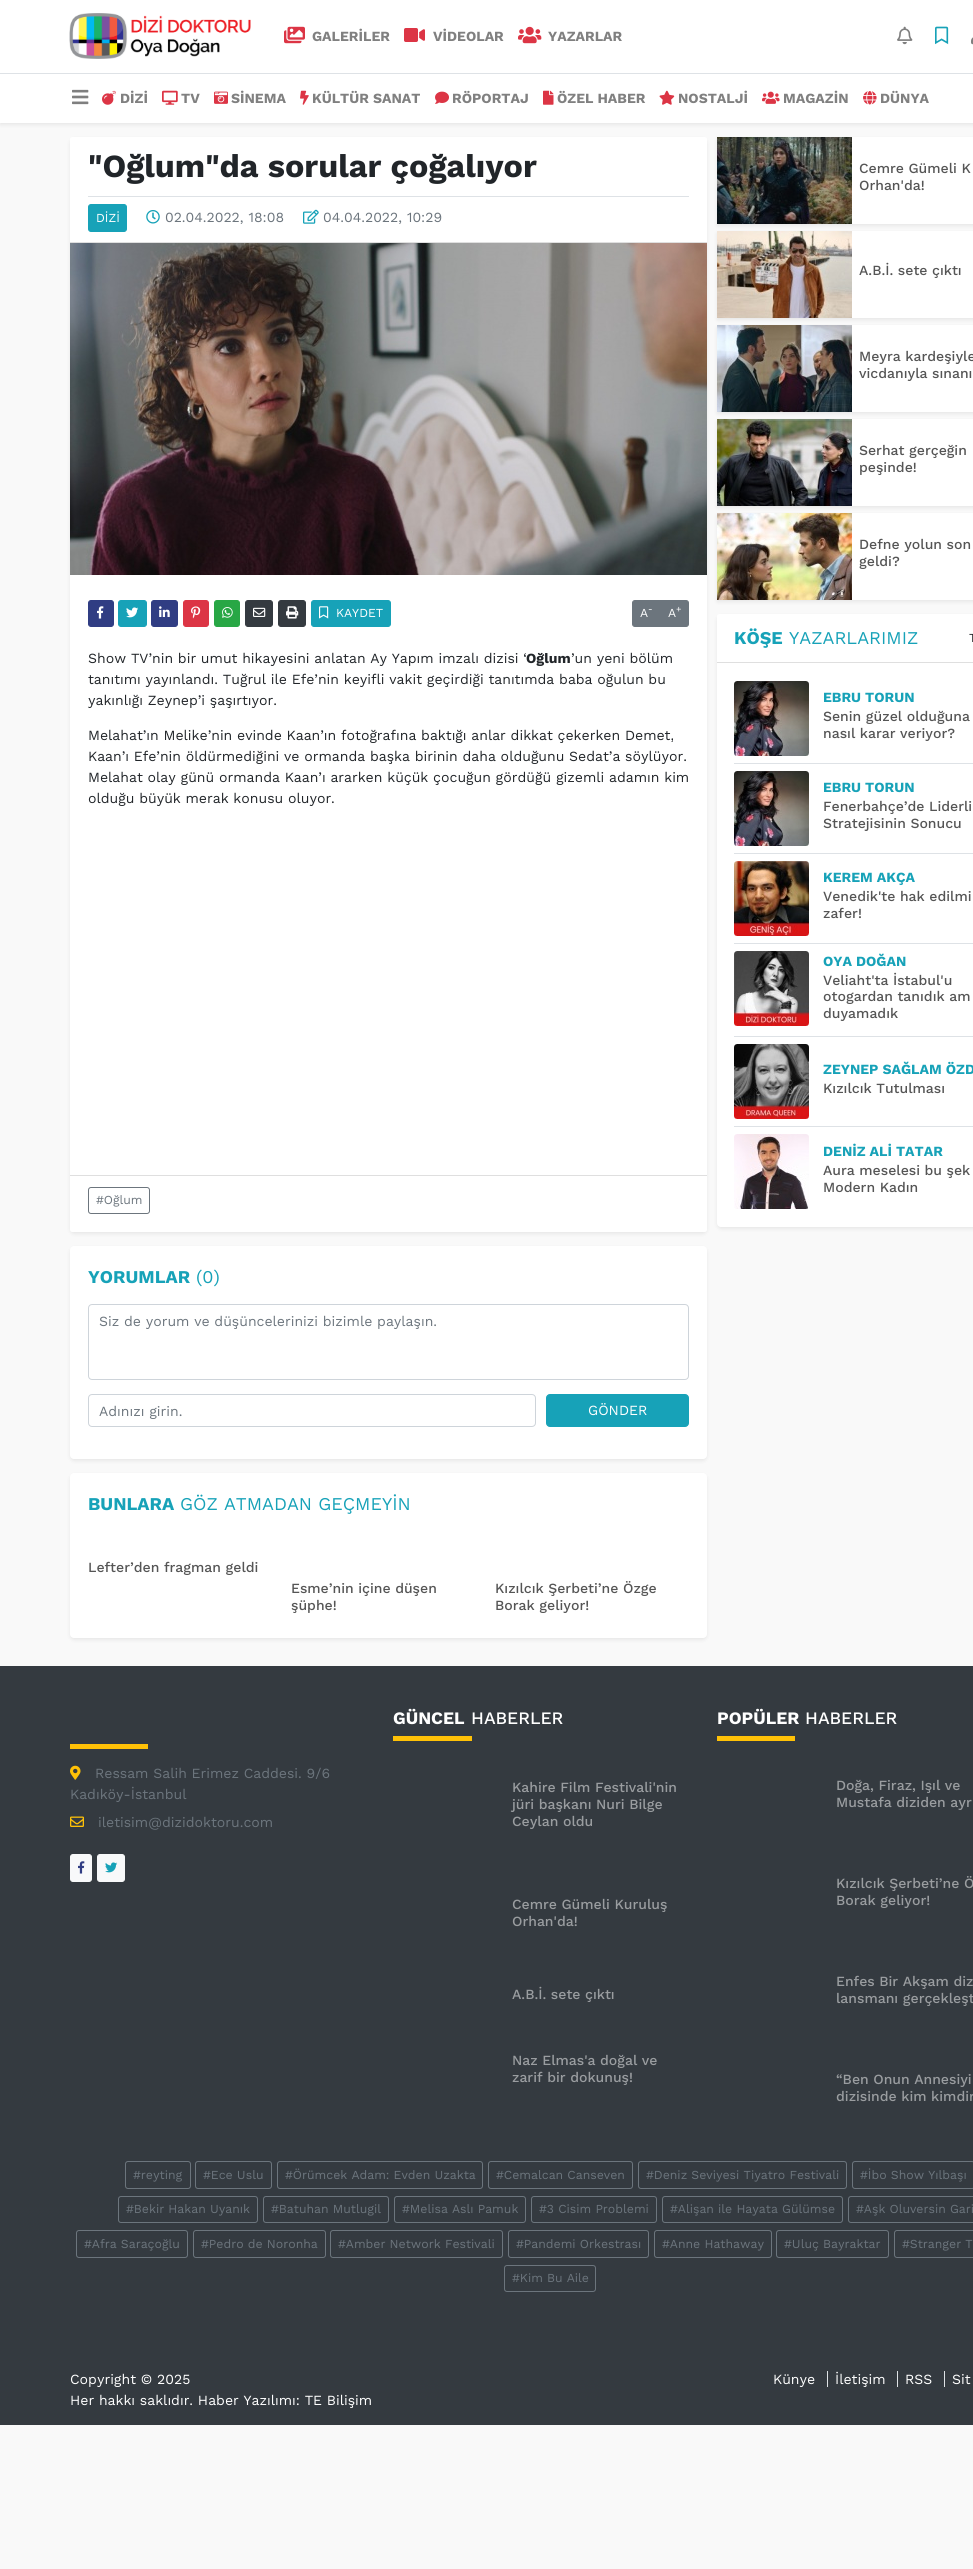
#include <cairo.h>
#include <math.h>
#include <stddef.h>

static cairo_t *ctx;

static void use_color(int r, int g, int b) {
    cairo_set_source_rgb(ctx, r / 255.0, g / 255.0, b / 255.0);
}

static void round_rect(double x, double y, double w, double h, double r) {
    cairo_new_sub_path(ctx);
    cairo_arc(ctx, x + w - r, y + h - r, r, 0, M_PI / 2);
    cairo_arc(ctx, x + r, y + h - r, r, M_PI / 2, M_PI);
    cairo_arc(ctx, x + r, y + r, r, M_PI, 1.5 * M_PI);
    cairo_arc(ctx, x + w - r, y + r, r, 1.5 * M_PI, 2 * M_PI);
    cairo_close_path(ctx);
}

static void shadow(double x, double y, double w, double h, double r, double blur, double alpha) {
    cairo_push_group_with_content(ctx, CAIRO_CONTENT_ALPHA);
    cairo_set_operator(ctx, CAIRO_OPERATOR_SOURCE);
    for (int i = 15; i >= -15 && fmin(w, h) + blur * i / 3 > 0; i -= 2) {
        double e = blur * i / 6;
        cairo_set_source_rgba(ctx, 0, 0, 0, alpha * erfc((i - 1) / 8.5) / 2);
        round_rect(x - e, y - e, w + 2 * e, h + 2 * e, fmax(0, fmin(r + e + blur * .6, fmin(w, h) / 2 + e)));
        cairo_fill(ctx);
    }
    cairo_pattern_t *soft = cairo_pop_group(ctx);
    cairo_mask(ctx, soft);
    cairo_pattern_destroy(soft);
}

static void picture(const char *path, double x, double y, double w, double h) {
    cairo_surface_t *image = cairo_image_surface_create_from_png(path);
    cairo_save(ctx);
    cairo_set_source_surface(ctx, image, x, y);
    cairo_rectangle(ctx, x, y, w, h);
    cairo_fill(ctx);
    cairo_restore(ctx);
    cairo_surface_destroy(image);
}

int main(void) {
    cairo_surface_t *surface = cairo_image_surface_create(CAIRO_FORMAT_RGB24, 973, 2569);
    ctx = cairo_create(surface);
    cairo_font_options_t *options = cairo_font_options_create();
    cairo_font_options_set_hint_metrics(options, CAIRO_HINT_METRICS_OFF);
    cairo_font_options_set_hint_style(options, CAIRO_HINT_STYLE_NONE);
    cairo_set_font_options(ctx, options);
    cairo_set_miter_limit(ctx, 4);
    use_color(249, 249, 249);
    cairo_paint(ctx);
    use_color(0, 0, 0);
    shadow(0, 2, 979, 123, 0, 2, 0.07);
    use_color(255, 255, 255);
    cairo_rectangle(ctx, 0, 0, 973, 123);
    cairo_fill(ctx);
    use_color(222, 226, 230);
    cairo_rectangle(ctx, 0, 73, 973, 1);
    cairo_fill(ctx);
    picture("img1.png", 69, 13, 182, 46);
    picture("img2.png", 284, 26, 21, 18);
    cairo_select_font_face(ctx, "Work Sans", CAIRO_FONT_SLANT_NORMAL, CAIRO_FONT_WEIGHT_BOLD);
    cairo_set_font_size(ctx, 14);
    use_color(128, 128, 128);
    cairo_move_to(ctx, 312, 41);
    cairo_show_text(ctx, "GALERİLER");
    picture("img3.png", 404, 28, 21, 14);
    cairo_move_to(ctx, 433, 41);
    cairo_show_text(ctx, "VİDEOLAR");
    picture("img4.png", 518, 26, 24, 18);
    cairo_move_to(ctx, 548, 41);
    cairo_show_text(ctx, "YAZARLAR");
    picture("img5.png", 897, 26, 16, 19);
    picture("img6.png", 935, 26, 14, 19);
    picture("img7.png", 971, 37, 2, 8);
    picture("img8.png", 72, 89, 17, 16);
    picture("img9.png", 102, 90, 14, 15);
    cairo_move_to(ctx, 120, 103);
    cairo_show_text(ctx, "DİZİ");
    picture("img10.png", 162, 90, 16, 15);
    cairo_move_to(ctx, 181, 103);
    cairo_show_text(ctx, "TV");
    picture("img11.png", 214, 91, 14, 13);
    cairo_move_to(ctx, 231, 103);
    cairo_show_text(ctx, "SİNEMA");
    picture("img12.png", 300, 90, 9, 15);
    cairo_move_to(ctx, 312, 103);
    cairo_show_text(ctx, "KÜLTÜR SANAT");
    picture("img13.png", 435, 91, 14, 13);
    cairo_move_to(ctx, 452, 103);
    cairo_show_text(ctx, "RÖPORTAJ");
    picture("img14.png", 543, 90, 11, 15);
    cairo_move_to(ctx, 557, 103);
    cairo_show_text(ctx, "ÖZEL HABER");
    picture("img15.png", 659, 90, 16, 15);
    cairo_move_to(ctx, 678, 103);
    cairo_show_text(ctx, "NOSTALJİ");
    picture("img16.png", 762, 91, 18, 13);
    cairo_move_to(ctx, 783, 103);
    cairo_show_text(ctx, "MAGAZİN");
    picture("img17.png", 863, 91, 14, 14);
    cairo_move_to(ctx, 880, 103);
    cairo_show_text(ctx, "DÜNYA");
    use_color(0, 0, 0);
    shadow(70, 139, 637, 1095, 4, 2, 0.07);
    use_color(255, 255, 255);
    round_rect(70, 137, 637, 1095, 4);
    cairo_fill(ctx);
    cairo_new_path(ctx);
    cairo_move_to(ctx, 72.5, 137);
    cairo_line_to(ctx, 704.5, 137);
    cairo_curve_to(ctx, 706, 137, 707, 138, 707, 139.5);
    cairo_line_to(ctx, 707, 243);
    cairo_line_to(ctx, 70, 243);
    cairo_line_to(ctx, 70, 139.5);
    cairo_curve_to(ctx, 70, 138, 71, 137, 72.5, 137);
    cairo_close_path(ctx);
    cairo_fill(ctx);
    use_color(223, 223, 223);
    cairo_rectangle(ctx, 70, 242, 637, 1);
    cairo_fill(ctx);
    cairo_set_font_size(ctx, 32.25);
    use_color(33, 37, 41);
    cairo_move_to(ctx, 88, 177);
    cairo_show_text(ctx, "\"Oğlum\"da sorular çoğalıyor");
    use_color(222, 226, 230);
    cairo_rectangle(ctx, 88, 196, 601, 1);
    cairo_fill(ctx);
    use_color(23, 162, 184);
    round_rect(88.5, 204.5, 38, 27, 2.5);
    cairo_fill_preserve(ctx);
    cairo_set_line_width(ctx, 1);
    cairo_stroke(ctx);
    cairo_select_font_face(ctx, "Work Sans", CAIRO_FONT_SLANT_NORMAL, CAIRO_FONT_WEIGHT_NORMAL);
    cairo_set_font_size(ctx, 12.25);
    use_color(255, 255, 255);
    cairo_move_to(ctx, 96, 222);
    cairo_show_text(ctx, "DİZİ");
    picture("img18.png", 146, 210, 14, 14);
    cairo_set_font_size(ctx, 14);
    use_color(108, 117, 125);
    cairo_move_to(ctx, 165, 222);
    cairo_show_text(ctx, "02.04.2022, 18:08");
    picture("img19.png", 303, 209, 16, 15);
    cairo_move_to(ctx, 323, 222);
    cairo_show_text(ctx, "04.04.2022, 10:29");
    picture("img20.png", 70, 243, 637, 332);
    use_color(48, 61, 131);
    round_rect(88.5, 600.5, 25, 26, 2.5);
    cairo_fill_preserve(ctx);
    cairo_stroke(ctx);
    picture("img21.png", 97, 606, 7, 13);
    use_color(23, 162, 184);
    round_rect(118.5, 600.5, 28, 26, 2.5);
    cairo_fill_preserve(ctx);
    cairo_stroke(ctx);
    picture("img22.png", 126, 607, 13, 11);
    use_color(48, 61, 131);
    round_rect(151.5, 600.5, 26, 26, 2.5);
    cairo_fill_preserve(ctx);
    cairo_stroke(ctx);
    picture("img23.png", 159, 606, 11, 11);
    use_color(220, 53, 69);
    round_rect(183.5, 600.5, 25, 26, 2.5);
    cairo_fill_preserve(ctx);
    cairo_stroke(ctx);
    picture("img24.png", 191, 606, 10, 13);
    use_color(40, 167, 69);
    round_rect(214.5, 600.5, 25, 26, 2.5);
    cairo_fill_preserve(ctx);
    cairo_stroke(ctx);
    picture("img25.png", 222, 607, 11, 11);
    use_color(52, 58, 64);
    round_rect(245.5, 600.5, 27, 26, 2.5);
    cairo_fill_preserve(ctx);
    cairo_stroke(ctx);
    picture("img26.png", 253, 607, 13, 10);
    round_rect(278.5, 600.5, 27, 26, 2.5);
    cairo_fill_preserve(ctx);
    cairo_stroke(ctx);
    picture("img27.png", 286, 606, 13, 13);
    use_color(23, 162, 184);
    round_rect(311.5, 600.5, 79, 26, 2.5);
    cairo_fill_preserve(ctx);
    cairo_stroke(ctx);
    picture("img28.png", 319, 606, 10, 13);
    cairo_set_font_size(ctx, 12.25);
    use_color(255, 255, 255);
    cairo_move_to(ctx, 336, 617);
    cairo_show_text(ctx, "KAYDET");
    use_color(108, 117, 125);
    cairo_new_path(ctx);
    cairo_move_to(ctx, 635, 600.5);
    cairo_line_to(ctx, 660.5, 600.5);
    cairo_line_to(ctx, 660.5, 626.5);
    cairo_line_to(ctx, 635, 626.5);
    cairo_curve_to(ctx, 633.5, 626.5, 632.5, 625.5, 632.5, 624);
    cairo_line_to(ctx, 632.5, 603);
    cairo_curve_to(ctx, 632.5, 601.5, 633.5, 600.5, 635, 600.5);
    cairo_close_path(ctx);
    cairo_fill_preserve(ctx);
    cairo_stroke(ctx);
    use_color(255, 255, 255);
    cairo_move_to(ctx, 640, 617);
    cairo_show_text(ctx, "A");
    cairo_set_font_size(ctx, 9);
    cairo_move_to(ctx, 648, 612);
    cairo_show_text(ctx, "-");
    use_color(108, 117, 125);
    cairo_new_path(ctx);
    cairo_move_to(ctx, 660.5, 600.5);
    cairo_line_to(ctx, 686, 600.5);
    cairo_curve_to(ctx, 687.5, 600.5, 688.5, 601.5, 688.5, 603);
    cairo_line_to(ctx, 688.5, 624);
    cairo_curve_to(ctx, 688.5, 625.5, 687.5, 626.5, 686, 626.5);
    cairo_line_to(ctx, 660.5, 626.5);
    cairo_close_path(ctx);
    cairo_fill_preserve(ctx);
    cairo_stroke(ctx);
    cairo_set_font_size(ctx, 12.25);
    use_color(255, 255, 255);
    cairo_move_to(ctx, 668, 617);
    cairo_show_text(ctx, "A");
    cairo_set_font_size(ctx, 9);
    cairo_move_to(ctx, 676, 612);
    cairo_show_text(ctx, "+");
    cairo_set_font_size(ctx, 14);
    use_color(33, 37, 41);
    cairo_move_to(ctx, 88, 663);
    cairo_show_text(ctx, "Show TV’nin bir umut hikayesini anlatan Ay Yapım imzalı dizisi ‘");
    cairo_select_font_face(ctx, "Work Sans", CAIRO_FONT_SLANT_NORMAL, CAIRO_FONT_WEIGHT_BOLD);
    cairo_move_to(ctx, 526, 663);
    cairo_show_text(ctx, "Oğlum");
    cairo_select_font_face(ctx, "Work Sans", CAIRO_FONT_SLANT_NORMAL, CAIRO_FONT_WEIGHT_NORMAL);
    cairo_move_to(ctx, 571, 663);
    cairo_show_text(ctx, "’un yeni bölüm");
    cairo_move_to(ctx, 88, 684);
    cairo_show_text(ctx, "tanıtımı yayınlandı. Tuğrul ile Efe’nin keyifli vakit geçirdiği tanıtımda baba oğulun bu");
    cairo_move_to(ctx, 88, 705);
    cairo_show_text(ctx, "yakınlığı Zeynep’i şaşırtıyor.");
    cairo_move_to(ctx, 88, 740);
    cairo_show_text(ctx, "Melahat’ın Melike’nin evinde Kaan’ın fotoğrafına baktığı anlar dikkat çekerken Demet,");
    cairo_move_to(ctx, 88, 761);
    cairo_show_text(ctx, "Kaan’ı Efe’nin öldürmediğini ve ormanda başka birinin daha olduğunu Sedat’a söylüyor.");
    cairo_move_to(ctx, 88, 782);
    cairo_show_text(ctx, "Melahat olay günü ormanda Kaan’ı ararken küçük çocuğun gördüğü gizemli adamın kim");
    cairo_move_to(ctx, 88, 803);
    cairo_show_text(ctx, "olduğu büyük merak konusu oluyor.");
    use_color(255, 255, 255);
    cairo_new_path(ctx);
    cairo_move_to(ctx, 70, 1175);
    cairo_line_to(ctx, 707, 1175);
    cairo_line_to(ctx, 707, 1229.5);
    cairo_curve_to(ctx, 707, 1231, 706, 1232, 704.5, 1232);
    cairo_line_to(ctx, 72.5, 1232);
    cairo_curve_to(ctx, 71, 1232, 70, 1231, 70, 1229.5);
    cairo_close_path(ctx);
    cairo_fill(ctx);
    use_color(223, 223, 223);
    cairo_rectangle(ctx, 70, 1175, 637, 1);
    cairo_fill(ctx);
    round_rect(88.5, 1187.5, 61, 26, 2.5);
    use_color(108, 117, 125);
    cairo_stroke(ctx);
    cairo_set_font_size(ctx, 12.25);
    cairo_move_to(ctx, 96, 1204);
    cairo_show_text(ctx, "#Oğlum");
    use_color(0, 0, 0);
    shadow(70, 1248, 637, 213, 4, 2, 0.07);
    use_color(255, 255, 255);
    round_rect(70, 1246, 637, 213, 4);
    cairo_fill(ctx);
    cairo_select_font_face(ctx, "Work Sans", CAIRO_FONT_SLANT_NORMAL, CAIRO_FONT_WEIGHT_BOLD);
    cairo_set_font_size(ctx, 18);
    use_color(23, 162, 184);
    cairo_move_to(ctx, 88, 1283);
    cairo_show_text(ctx, "YORUMLAR");
    cairo_select_font_face(ctx, "Work Sans", CAIRO_FONT_SLANT_NORMAL, CAIRO_FONT_WEIGHT_NORMAL);
    cairo_move_to(ctx, 196, 1283);
    cairo_show_text(ctx, "(0)");
    round_rect(88.5, 1304.5, 600, 75, 3.5);
    use_color(206, 212, 218);
    cairo_stroke(ctx);
    cairo_set_font_size(ctx, 14);
    use_color(108, 117, 125);
    cairo_move_to(ctx, 99, 1326);
    cairo_show_text(ctx, "Siz de yorum ve düşüncelerinizi bizimle paylaşın.");
    round_rect(88.5, 1394.5, 447, 32, 3.5);
    use_color(206, 212, 218);
    cairo_stroke(ctx);
    use_color(108, 117, 125);
    cairo_move_to(ctx, 99, 1416);
    cairo_show_text(ctx, "Adınızı girin.");
    use_color(23, 162, 184);
    round_rect(546.5, 1394.5, 142, 32, 3.5);
    cairo_fill_preserve(ctx);
    cairo_stroke(ctx);
    use_color(255, 255, 255);
    cairo_move_to(ctx, 588, 1415);
    cairo_show_text(ctx, "GÖNDER");
    use_color(0, 0, 0);
    shadow(70, 1475, 637, 165, 4, 2, 0.07);
    use_color(255, 255, 255);
    round_rect(70, 1473, 637, 165, 4);
    cairo_fill(ctx);
    cairo_select_font_face(ctx, "Work Sans", CAIRO_FONT_SLANT_NORMAL, CAIRO_FONT_WEIGHT_BOLD);
    cairo_set_font_size(ctx, 18);
    use_color(23, 162, 184);
    cairo_move_to(ctx, 88, 1510);
    cairo_show_text(ctx, "BUNLARA");
    cairo_select_font_face(ctx, "Work Sans", CAIRO_FONT_SLANT_NORMAL, CAIRO_FONT_WEIGHT_NORMAL);
    cairo_move_to(ctx, 180, 1510);
    cairo_show_text(ctx, "GÖZ ATMADAN GEÇMEYİN");
    cairo_select_font_face(ctx, "Work Sans Medium", CAIRO_FONT_SLANT_NORMAL, CAIRO_FONT_WEIGHT_NORMAL);
    cairo_set_font_size(ctx, 14);
    use_color(85, 85, 85);
    cairo_move_to(ctx, 88, 1572);
    cairo_show_text(ctx, "Lefter’den fragman geldi");
    cairo_move_to(ctx, 291, 1593);
    cairo_show_text(ctx, "Esme’nin içine düşen");
    cairo_move_to(ctx, 291, 1610);
    cairo_show_text(ctx, "şüphe!");
    cairo_move_to(ctx, 495, 1593);
    cairo_show_text(ctx, "Kızılcık Şerbeti’ne Özge");
    cairo_move_to(ctx, 495, 1610);
    cairo_show_text(ctx, "Borak geliyor!");
    use_color(0, 0, 0);
    shadow(717, 139, 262, 87, 0, 2, 0.07);
    use_color(255, 255, 255);
    cairo_rectangle(ctx, 852, 137, 121, 87);
    cairo_fill(ctx);
    picture("img29.png", 717, 137, 135, 87);
    use_color(85, 85, 85);
    cairo_move_to(ctx, 859, 173);
    cairo_show_text(ctx, "Cemre Gümeli K");
    cairo_move_to(ctx, 859, 190);
    cairo_show_text(ctx, "Orhan'da!");
    use_color(0, 0, 0);
    shadow(717, 233, 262, 87, 0, 2, 0.07);
    use_color(255, 255, 255);
    cairo_rectangle(ctx, 852, 231, 121, 87);
    cairo_fill(ctx);
    picture("img30.png", 717, 231, 135, 87);
    use_color(85, 85, 85);
    cairo_move_to(ctx, 859, 275);
    cairo_show_text(ctx, "A.B.İ. sete çıktı");
    use_color(0, 0, 0);
    shadow(717, 327, 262, 87, 0, 2, 0.07);
    use_color(255, 255, 255);
    cairo_rectangle(ctx, 852, 325, 121, 87);
    cairo_fill(ctx);
    picture("img31.png", 717, 325, 135, 87);
    use_color(85, 85, 85);
    cairo_move_to(ctx, 859, 361);
    cairo_show_text(ctx, "Meyra kardeşiyle");
    cairo_move_to(ctx, 859, 378);
    cairo_show_text(ctx, "vicdanıyla sınanı");
    use_color(0, 0, 0);
    shadow(717, 421, 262, 87, 0, 2, 0.07);
    use_color(255, 255, 255);
    cairo_rectangle(ctx, 852, 419, 121, 87);
    cairo_fill(ctx);
    picture("img32.png", 717, 419, 135, 87);
    use_color(85, 85, 85);
    cairo_move_to(ctx, 859, 455);
    cairo_show_text(ctx, "Serhat gerçeğin");
    cairo_move_to(ctx, 859, 472);
    cairo_show_text(ctx, "peşinde!");
    use_color(0, 0, 0);
    shadow(717, 515, 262, 87, 0, 2, 0.07);
    use_color(255, 255, 255);
    cairo_rectangle(ctx, 852, 513, 121, 87);
    cairo_fill(ctx);
    picture("img33.png", 717, 513, 135, 87);
    use_color(85, 85, 85);
    cairo_move_to(ctx, 859, 549);
    cairo_show_text(ctx, "Defne yolun son");
    cairo_move_to(ctx, 859, 566);
    cairo_show_text(ctx, "geldi?");
    use_color(0, 0, 0);
    shadow(717, 616, 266, 613, 4, 2, 0.07);
    use_color(255, 255, 255);
    round_rect(717, 614, 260, 613, 4);
    cairo_fill(ctx);
    cairo_new_path(ctx);
    cairo_move_to(ctx, 719.5, 614);
    cairo_line_to(ctx, 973.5, 614);
    cairo_curve_to(ctx, 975, 614, 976, 615, 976, 616.5);
    cairo_line_to(ctx, 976, 663);
    cairo_line_to(ctx, 717, 663);
    cairo_line_to(ctx, 717, 616.5);
    cairo_curve_to(ctx, 717, 615, 718, 614, 719.5, 614);
    cairo_close_path(ctx);
    cairo_fill(ctx);
    use_color(223, 223, 223);
    cairo_rectangle(ctx, 717, 662, 256, 1);
    cairo_fill(ctx);
    cairo_select_font_face(ctx, "Work Sans", CAIRO_FONT_SLANT_NORMAL, CAIRO_FONT_WEIGHT_BOLD);
    cairo_set_font_size(ctx, 18);
    use_color(23, 162, 184);
    cairo_move_to(ctx, 734, 644);
    cairo_show_text(ctx, "KÖŞE");
    cairo_select_font_face(ctx, "Work Sans", CAIRO_FONT_SLANT_NORMAL, CAIRO_FONT_WEIGHT_NORMAL);
    cairo_move_to(ctx, 789, 644);
    cairo_show_text(ctx, "YAZARLARIMIZ");
    cairo_set_font_size(ctx, 12.25);
    use_color(33, 37, 41);
    cairo_move_to(ctx, 969, 642);
    cairo_show_text(ctx, "T");
    use_color(222, 226, 230);
    cairo_rectangle(ctx, 734, 763, 239, 1);
    cairo_fill(ctx);
    picture("img34.png", 734, 681, 75, 75);
    cairo_select_font_face(ctx, "Work Sans", CAIRO_FONT_SLANT_NORMAL, CAIRO_FONT_WEIGHT_BOLD);
    cairo_set_font_size(ctx, 14);
    use_color(23, 162, 184);
    cairo_move_to(ctx, 823, 702);
    cairo_show_text(ctx, "EBRU TORUN");
    cairo_select_font_face(ctx, "Work Sans Medium", CAIRO_FONT_SLANT_NORMAL, CAIRO_FONT_WEIGHT_NORMAL);
    use_color(85, 85, 85);
    cairo_move_to(ctx, 823, 721);
    cairo_show_text(ctx, "Senin güzel olduğuna");
    cairo_move_to(ctx, 823, 738);
    cairo_show_text(ctx, "nasıl karar veriyor?");
    use_color(222, 226, 230);
    cairo_rectangle(ctx, 734, 853, 239, 1);
    cairo_fill(ctx);
    picture("img34.png", 734, 771, 75, 75);
    cairo_select_font_face(ctx, "Work Sans", CAIRO_FONT_SLANT_NORMAL, CAIRO_FONT_WEIGHT_BOLD);
    use_color(23, 162, 184);
    cairo_move_to(ctx, 823, 792);
    cairo_show_text(ctx, "EBRU TORUN");
    cairo_select_font_face(ctx, "Work Sans Medium", CAIRO_FONT_SLANT_NORMAL, CAIRO_FONT_WEIGHT_NORMAL);
    use_color(85, 85, 85);
    cairo_move_to(ctx, 823, 811);
    cairo_show_text(ctx, "Fenerbahçe’de Liderli");
    cairo_move_to(ctx, 823, 828);
    cairo_show_text(ctx, "Stratejisinin Sonucu");
    use_color(222, 226, 230);
    cairo_rectangle(ctx, 734, 943, 239, 1);
    cairo_fill(ctx);
    picture("img35.png", 734, 861, 75, 75);
    cairo_select_font_face(ctx, "Work Sans", CAIRO_FONT_SLANT_NORMAL, CAIRO_FONT_WEIGHT_BOLD);
    use_color(23, 162, 184);
    cairo_move_to(ctx, 823, 882);
    cairo_show_text(ctx, "KEREM AKÇA");
    cairo_select_font_face(ctx, "Work Sans Medium", CAIRO_FONT_SLANT_NORMAL, CAIRO_FONT_WEIGHT_NORMAL);
    use_color(85, 85, 85);
    cairo_move_to(ctx, 823, 901);
    cairo_show_text(ctx, "Venedik'te hak edilmi");
    cairo_move_to(ctx, 823, 918);
    cairo_show_text(ctx, "zafer!");
    use_color(222, 226, 230);
    cairo_rectangle(ctx, 734, 1036, 239, 1);
    cairo_fill(ctx);
    picture("img36.png", 734, 951, 75, 75);
    cairo_select_font_face(ctx, "Work Sans", CAIRO_FONT_SLANT_NORMAL, CAIRO_FONT_WEIGHT_BOLD);
    use_color(23, 162, 184);
    cairo_move_to(ctx, 823, 966);
    cairo_show_text(ctx, "OYA DOĞAN");
    cairo_select_font_face(ctx, "Work Sans Medium", CAIRO_FONT_SLANT_NORMAL, CAIRO_FONT_WEIGHT_NORMAL);
    use_color(85, 85, 85);
    cairo_move_to(ctx, 823, 985);
    cairo_show_text(ctx, "Veliaht'ta İstabul'u");
    cairo_move_to(ctx, 823, 1001);
    cairo_show_text(ctx, "otogardan tanıdık am");
    cairo_move_to(ctx, 823, 1018);
    cairo_show_text(ctx, "duyamadık");
    use_color(222, 226, 230);
    cairo_rectangle(ctx, 734, 1126, 239, 1);
    cairo_fill(ctx);
    picture("img37.png", 734, 1044, 75, 75);
    cairo_select_font_face(ctx, "Work Sans", CAIRO_FONT_SLANT_NORMAL, CAIRO_FONT_WEIGHT_BOLD);
    use_color(23, 162, 184);
    cairo_move_to(ctx, 823, 1074);
    cairo_show_text(ctx, "ZEYNEP SAĞLAM ÖZD");
    cairo_select_font_face(ctx, "Work Sans Medium", CAIRO_FONT_SLANT_NORMAL, CAIRO_FONT_WEIGHT_NORMAL);
    use_color(85, 85, 85);
    cairo_move_to(ctx, 823, 1093);
    cairo_show_text(ctx, "Kızılcık Tutulması");
    picture("img38.png", 734, 1134, 75, 75);
    cairo_select_font_face(ctx, "Work Sans", CAIRO_FONT_SLANT_NORMAL, CAIRO_FONT_WEIGHT_BOLD);
    use_color(23, 162, 184);
    cairo_move_to(ctx, 823, 1156);
    cairo_show_text(ctx, "DENİZ ALİ TATAR");
    cairo_select_font_face(ctx, "Work Sans Medium", CAIRO_FONT_SLANT_NORMAL, CAIRO_FONT_WEIGHT_NORMAL);
    use_color(85, 85, 85);
    cairo_move_to(ctx, 823, 1175);
    cairo_show_text(ctx, "Aura meselesi bu şek");
    cairo_move_to(ctx, 823, 1192);
    cairo_show_text(ctx, "Modern Kadın");
    use_color(52, 58, 64);
    cairo_rectangle(ctx, 0, 1666, 973, 759);
    cairo_fill(ctx);
    use_color(255, 193, 7);
    cairo_rectangle(ctx, 70, 1744, 78, 5);
    cairo_fill(ctx);
    picture("img39.png", 70, 1765, 11, 15);
    cairo_select_font_face(ctx, "Work Sans", CAIRO_FONT_SLANT_NORMAL, CAIRO_FONT_WEIGHT_NORMAL);
    use_color(108, 117, 125);
    cairo_move_to(ctx, 95, 1778);
    cairo_show_text(ctx, "Ressam Salih Erimez Caddesi. 9/6");
    cairo_move_to(ctx, 70, 1799);
    cairo_show_text(ctx, "Kadıköy-İstanbul");
    picture("img40.png", 70, 1816, 14, 11);
    cairo_move_to(ctx, 98, 1827);
    cairo_show_text(ctx, "iletisim@dizidoktoru.com");
    use_color(248, 249, 250);
    round_rect(70.5, 1854.5, 21, 27, 2.5);
    cairo_fill_preserve(ctx);
    cairo_stroke(ctx);
    picture("img41.png", 78, 1861, 7, 13);
    round_rect(97.5, 1854.5, 27, 27, 2.5);
    cairo_fill_preserve(ctx);
    cairo_stroke(ctx);
    picture("img42.png", 105, 1862, 13, 11);
    cairo_select_font_face(ctx, "Work Sans", CAIRO_FONT_SLANT_NORMAL, CAIRO_FONT_WEIGHT_BOLD);
    cairo_set_font_size(ctx, 17.5);
    use_color(255, 255, 255);
    cairo_move_to(ctx, 393, 1724);
    cairo_show_text(ctx, "GÜNCEL");
    cairo_select_font_face(ctx, "Work Sans Medium", CAIRO_FONT_SLANT_NORMAL, CAIRO_FONT_WEIGHT_NORMAL);
    cairo_move_to(ctx, 471, 1724);
    cairo_show_text(ctx, "HABERLER");
    use_color(255, 193, 7);
    cairo_rectangle(ctx, 393, 1736, 79, 5);
    cairo_fill(ctx);
    cairo_set_font_size(ctx, 14);
    use_color(154, 157, 160);
    cairo_move_to(ctx, 512, 1792);
    cairo_show_text(ctx, "Kahire Film Festivali'nin");
    cairo_move_to(ctx, 512, 1809);
    cairo_show_text(ctx, "jüri başkanı Nuri Bilge");
    cairo_move_to(ctx, 512, 1826);
    cairo_show_text(ctx, "Ceylan oldu");
    cairo_move_to(ctx, 512, 1909);
    cairo_show_text(ctx, "Cemre Gümeli Kuruluş");
    cairo_move_to(ctx, 512, 1926);
    cairo_show_text(ctx, "Orhan'da!");
    cairo_move_to(ctx, 512, 1999);
    cairo_show_text(ctx, "A.B.İ. sete çıktı");
    cairo_move_to(ctx, 512, 2065);
    cairo_show_text(ctx, "Naz Elmas'a doğal ve");
    cairo_move_to(ctx, 512, 2082);
    cairo_show_text(ctx, "zarif bir dokunuş!");
    cairo_select_font_face(ctx, "Work Sans", CAIRO_FONT_SLANT_NORMAL, CAIRO_FONT_WEIGHT_BOLD);
    cairo_set_font_size(ctx, 17.5);
    use_color(255, 255, 255);
    cairo_move_to(ctx, 717, 1724);
    cairo_show_text(ctx, "POPÜLER");
    cairo_select_font_face(ctx, "Work Sans Medium", CAIRO_FONT_SLANT_NORMAL, CAIRO_FONT_WEIGHT_NORMAL);
    cairo_move_to(ctx, 805, 1724);
    cairo_show_text(ctx, "HABERLER");
    use_color(255, 193, 7);
    cairo_rectangle(ctx, 717, 1736, 78, 5);
    cairo_fill(ctx);
    cairo_set_font_size(ctx, 14);
    use_color(154, 157, 160);
    cairo_move_to(ctx, 836, 1790);
    cairo_show_text(ctx, "Doğa, Firaz, Işıl ve");
    cairo_move_to(ctx, 836, 1807);
    cairo_show_text(ctx, "Mustafa diziden ayr");
    cairo_move_to(ctx, 836, 1888);
    cairo_show_text(ctx, "Kızılcık Şerbeti’ne Ö");
    cairo_move_to(ctx, 836, 1905);
    cairo_show_text(ctx, "Borak geliyor!");
    cairo_move_to(ctx, 836, 1986);
    cairo_show_text(ctx, "Enfes Bir Akşam diz");
    cairo_move_to(ctx, 836, 2003);
    cairo_show_text(ctx, "lansmanı gerçekleşt");
    cairo_move_to(ctx, 836, 2084);
    cairo_show_text(ctx, "“Ben Onun Annesiyi");
    cairo_move_to(ctx, 836, 2101);
    cairo_show_text(ctx, "dizisinde kim kimdir");
    round_rect(125.5, 2161.5, 65, 27, 2.5);
    use_color(108, 117, 125);
    cairo_stroke(ctx);
    cairo_select_font_face(ctx, "Work Sans", CAIRO_FONT_SLANT_NORMAL, CAIRO_FONT_WEIGHT_NORMAL);
    cairo_set_font_size(ctx, 12.25);
    cairo_move_to(ctx, 133, 2179);
    cairo_show_text(ctx, "#reyting");
    round_rect(195.5, 2161.5, 76, 27, 2.5);
    cairo_stroke(ctx);
    cairo_move_to(ctx, 203, 2179);
    cairo_show_text(ctx, "#Ece Uslu");
    round_rect(277.5, 2161.5, 205, 27, 2.5);
    cairo_stroke(ctx);
    cairo_move_to(ctx, 285, 2179);
    cairo_show_text(ctx, "#Örümcek Adam: Evden Uzakta");
    round_rect(488.5, 2161.5, 144, 27, 2.5);
    cairo_stroke(ctx);
    cairo_move_to(ctx, 496, 2179);
    cairo_show_text(ctx, "#Cemalcan Canseven");
    round_rect(638.5, 2161.5, 208, 27, 2.5);
    cairo_stroke(ctx);
    cairo_move_to(ctx, 646, 2179);
    cairo_show_text(ctx, "#Deniz Seviyesi Tiyatro Festivali");
    round_rect(852.5, 2161.5, 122, 27, 2.5);
    cairo_stroke(ctx);
    cairo_move_to(ctx, 860, 2179);
    cairo_show_text(ctx, "#İbo Show Yılbaşı");
    round_rect(118.5, 2196.5, 139, 26, 2.5);
    cairo_stroke(ctx);
    cairo_move_to(ctx, 126, 2213);
    cairo_show_text(ctx, "#Bekir Hakan Uyanık");
    round_rect(263.5, 2196.5, 125, 26, 2.5);
    cairo_stroke(ctx);
    cairo_move_to(ctx, 271, 2213);
    cairo_show_text(ctx, "#Batuhan Mutlugil");
    round_rect(394.5, 2196.5, 131, 26, 2.5);
    cairo_stroke(ctx);
    cairo_move_to(ctx, 402, 2213);
    cairo_show_text(ctx, "#Melisa Aslı Pamuk");
    round_rect(531.5, 2196.5, 125, 26, 2.5);
    cairo_stroke(ctx);
    cairo_move_to(ctx, 539, 2213);
    cairo_show_text(ctx, "#3 Cisim Problemi");
    round_rect(662.5, 2196.5, 180, 26, 2.5);
    cairo_stroke(ctx);
    cairo_move_to(ctx, 670, 2213);
    cairo_show_text(ctx, "#Alişan ile Hayata Gülümse");
    round_rect(848.5, 2196.5, 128, 26, 2.5);
    cairo_stroke(ctx);
    cairo_move_to(ctx, 856, 2213);
    cairo_show_text(ctx, "#Aşk Oluversin Gari");
    round_rect(76.5, 2230.5, 111, 27, 2.5);
    cairo_stroke(ctx);
    cairo_move_to(ctx, 84, 2248);
    cairo_show_text(ctx, "#Afra Saraçoğlu");
    round_rect(193.5, 2230.5, 132, 27, 2.5);
    cairo_stroke(ctx);
    cairo_move_to(ctx, 201, 2248);
    cairo_show_text(ctx, "#Pedro de Noronha");
    round_rect(330.5, 2230.5, 172, 27, 2.5);
    cairo_stroke(ctx);
    cairo_move_to(ctx, 338, 2248);
    cairo_show_text(ctx, "#Amber Network Festivali");
    round_rect(508.5, 2230.5, 140, 27, 2.5);
    cairo_stroke(ctx);
    cairo_move_to(ctx, 516, 2248);
    cairo_show_text(ctx, "#Pandemi Orkestrası");
    round_rect(654.5, 2230.5, 117, 27, 2.5);
    cairo_stroke(ctx);
    cairo_move_to(ctx, 662, 2248);
    cairo_show_text(ctx, "#Anne Hathaway");
    round_rect(776.5, 2230.5, 112, 27, 2.5);
    cairo_stroke(ctx);
    cairo_move_to(ctx, 784, 2248);
    cairo_show_text(ctx, "#Uluç Bayraktar");
    round_rect(894.5, 2230.5, 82, 27, 2.5);
    cairo_stroke(ctx);
    cairo_move_to(ctx, 902, 2248);
    cairo_show_text(ctx, "#Stranger T");
    round_rect(504.5, 2265.5, 91, 26, 2.5);
    cairo_stroke(ctx);
    cairo_move_to(ctx, 512, 2282);
    cairo_show_text(ctx, "#Kim Bu Aile");
    cairo_set_font_size(ctx, 14);
    use_color(255, 255, 255);
    cairo_move_to(ctx, 70, 2384);
    cairo_show_text(ctx, "Copyright © 2025");
    cairo_move_to(ctx, 70, 2405);
    cairo_show_text(ctx, "Her hakkı saklıdır. Haber Yazılımı: TE Bilişim");
    cairo_move_to(ctx, 773, 2384);
    cairo_show_text(ctx, "Künye");
    cairo_move_to(ctx, 835, 2384);
    cairo_show_text(ctx, "İletişim");
    use_color(222, 226, 230);
    cairo_rectangle(ctx, 827, 2371, 1, 16);
    cairo_fill(ctx);
    use_color(255, 255, 255);
    cairo_move_to(ctx, 905, 2384);
    cairo_show_text(ctx, "RSS");
    use_color(222, 226, 230);
    cairo_rectangle(ctx, 897, 2371, 1, 16);
    cairo_fill(ctx);
    use_color(255, 255, 255);
    cairo_move_to(ctx, 952, 2384);
    cairo_show_text(ctx, "Sit");
    use_color(222, 226, 230);
    cairo_rectangle(ctx, 944, 2371, 1, 16);
    cairo_fill(ctx);
    cairo_surface_write_to_png(surface, "result.png");
    cairo_font_options_destroy(options);
    cairo_destroy(ctx);
    cairo_surface_destroy(surface);
    return 0;
}
